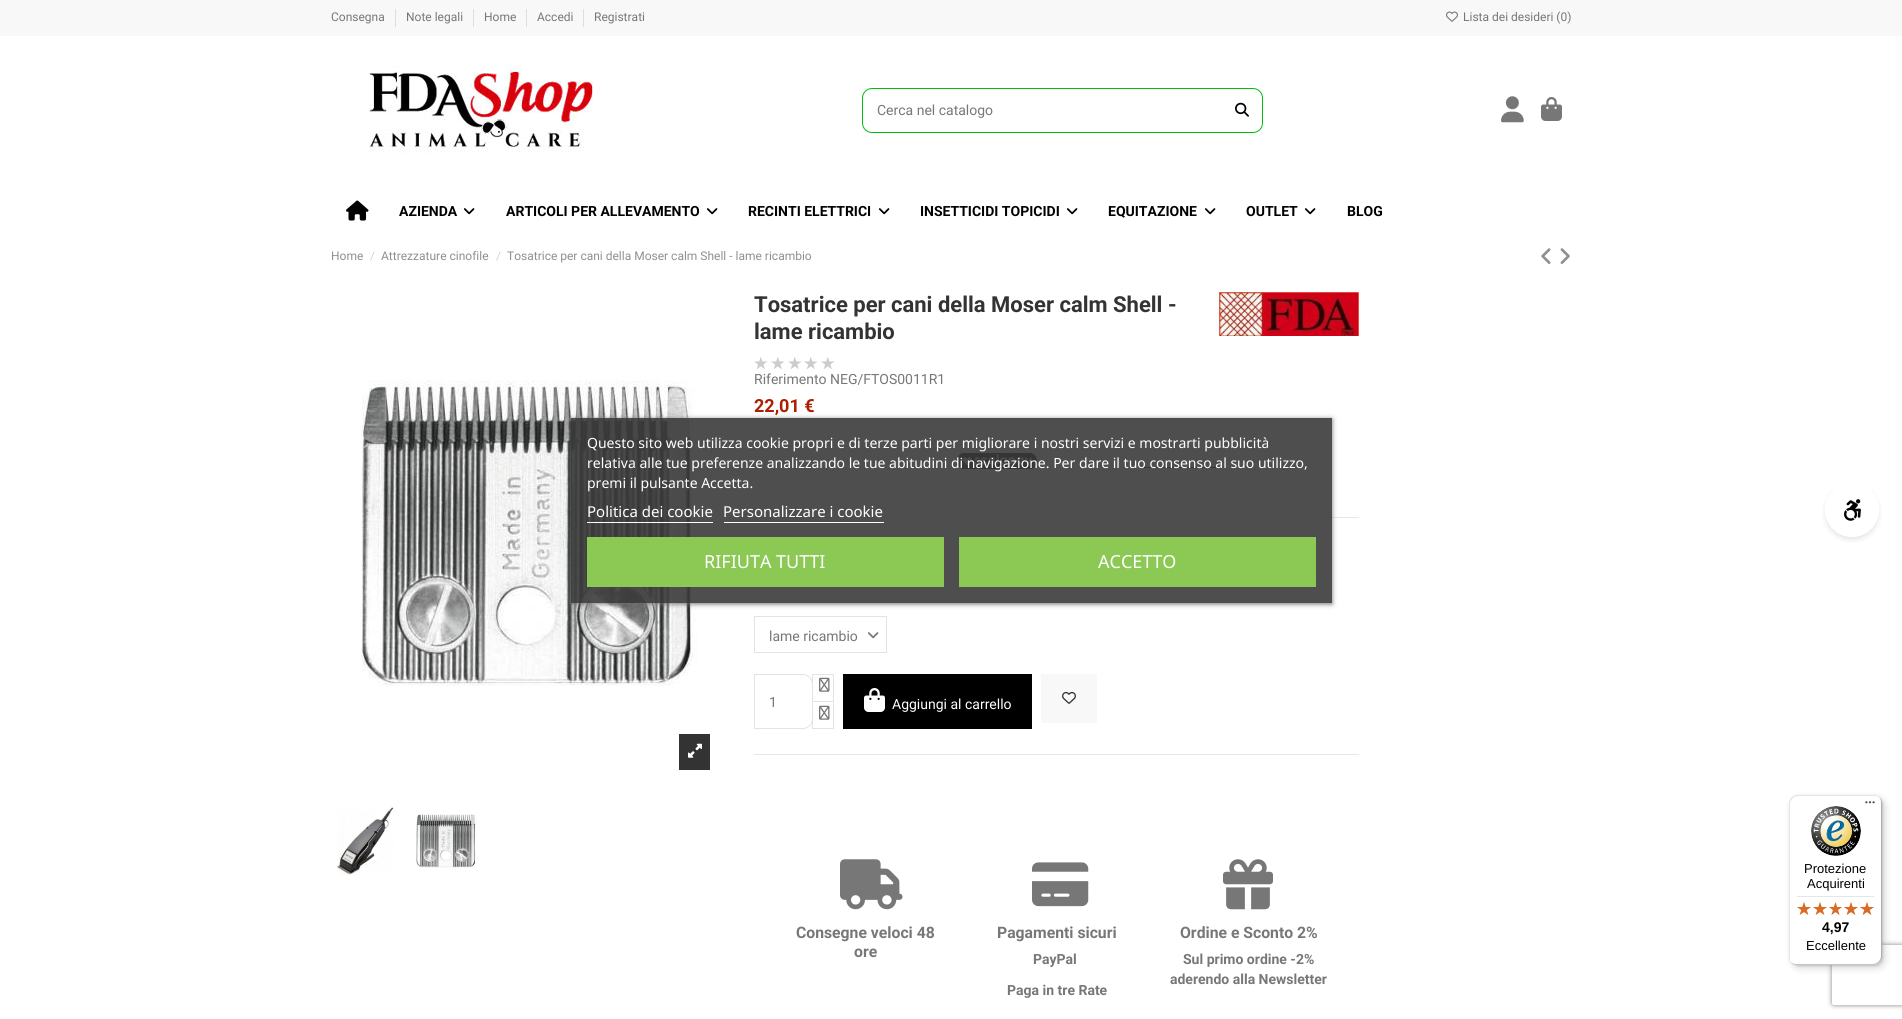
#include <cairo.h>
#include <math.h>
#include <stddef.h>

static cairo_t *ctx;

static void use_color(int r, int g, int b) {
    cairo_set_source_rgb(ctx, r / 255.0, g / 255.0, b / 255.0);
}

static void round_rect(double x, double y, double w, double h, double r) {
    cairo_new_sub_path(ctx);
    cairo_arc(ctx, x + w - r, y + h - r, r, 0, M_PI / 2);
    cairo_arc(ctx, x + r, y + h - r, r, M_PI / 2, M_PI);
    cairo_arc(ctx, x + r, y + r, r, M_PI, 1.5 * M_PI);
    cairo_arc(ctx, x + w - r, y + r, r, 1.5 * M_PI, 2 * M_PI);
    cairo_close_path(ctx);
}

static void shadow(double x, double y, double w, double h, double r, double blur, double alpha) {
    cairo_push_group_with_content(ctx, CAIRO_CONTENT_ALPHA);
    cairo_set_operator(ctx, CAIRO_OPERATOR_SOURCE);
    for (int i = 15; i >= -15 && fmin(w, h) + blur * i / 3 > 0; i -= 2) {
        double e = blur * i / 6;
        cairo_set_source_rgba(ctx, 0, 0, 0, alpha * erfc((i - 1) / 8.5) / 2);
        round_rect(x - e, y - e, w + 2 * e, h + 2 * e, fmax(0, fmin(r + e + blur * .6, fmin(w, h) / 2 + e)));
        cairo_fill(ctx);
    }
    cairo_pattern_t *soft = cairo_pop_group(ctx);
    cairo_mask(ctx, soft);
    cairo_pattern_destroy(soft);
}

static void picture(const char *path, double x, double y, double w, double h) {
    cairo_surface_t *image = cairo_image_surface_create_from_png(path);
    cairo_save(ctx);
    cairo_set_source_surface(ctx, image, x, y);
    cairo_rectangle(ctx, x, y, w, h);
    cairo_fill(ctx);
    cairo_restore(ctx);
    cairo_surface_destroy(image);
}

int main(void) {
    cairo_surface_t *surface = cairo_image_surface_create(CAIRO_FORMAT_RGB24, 1902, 1019);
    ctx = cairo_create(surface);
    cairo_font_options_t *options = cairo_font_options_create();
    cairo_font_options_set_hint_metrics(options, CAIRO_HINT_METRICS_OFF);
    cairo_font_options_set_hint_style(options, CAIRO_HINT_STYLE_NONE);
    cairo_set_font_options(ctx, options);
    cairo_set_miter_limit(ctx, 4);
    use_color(255, 255, 255);
    cairo_paint(ctx);
    use_color(248, 248, 248);
    cairo_rectangle(ctx, 0, 0, 1902, 36);
    cairo_fill(ctx);
    cairo_select_font_face(ctx, "Roboto", CAIRO_FONT_SLANT_NORMAL, CAIRO_FONT_WEIGHT_NORMAL);
    cairo_set_font_size(ctx, 12);
    use_color(119, 119, 119);
    cairo_move_to(ctx, 331, 21);
    cairo_show_text(ctx, "Consegna");
    use_color(222, 222, 222);
    cairo_rectangle(ctx, 395, 9, 1, 18);
    cairo_fill(ctx);
    use_color(119, 119, 119);
    cairo_move_to(ctx, 406, 21);
    cairo_show_text(ctx, "Note legali");
    use_color(222, 222, 222);
    cairo_rectangle(ctx, 473, 9, 1, 18);
    cairo_fill(ctx);
    use_color(119, 119, 119);
    cairo_move_to(ctx, 484, 21);
    cairo_show_text(ctx, "Home");
    use_color(222, 222, 222);
    cairo_rectangle(ctx, 526, 9, 1, 18);
    cairo_fill(ctx);
    use_color(119, 119, 119);
    cairo_move_to(ctx, 537, 21);
    cairo_show_text(ctx, "Accedi");
    use_color(222, 222, 222);
    cairo_rectangle(ctx, 583, 9, 1, 18);
    cairo_fill(ctx);
    use_color(119, 119, 119);
    cairo_move_to(ctx, 594, 21);
    cairo_show_text(ctx, "Registrati");
    picture("img1.png", 1446, 11, 12, 11);
    cairo_move_to(ctx, 1463, 21);
    cairo_show_text(ctx, "Lista dei desideri (0)");
    picture("img2.png", 369, 65, 224, 88);
    round_rect(862.5, 88.5, 400, 44, 9.5);
    use_color(0, 191, 12);
    cairo_set_line_width(ctx, 1);
    cairo_stroke(ctx);
    cairo_set_font_size(ctx, 14);
    use_color(119, 119, 119);
    cairo_move_to(ctx, 877, 115);
    cairo_show_text(ctx, "Cerca nel catalogo");
    picture("img3.png", 1235, 102, 14, 15);
    picture("img4.png", 1501, 96, 23, 27);
    picture("img5.png", 1541, 97, 21, 24);
    picture("img6.png", 346, 200, 23, 21);
    cairo_select_font_face(ctx, "Roboto", CAIRO_FONT_SLANT_NORMAL, CAIRO_FONT_WEIGHT_BOLD);
    use_color(0, 0, 0);
    cairo_move_to(ctx, 399, 216);
    cairo_show_text(ctx, "AZIENDA");
    picture("img7.png", 464, 208, 11, 7);
    cairo_move_to(ctx, 506, 216);
    cairo_show_text(ctx, "ARTICOLI PER ALLEVAMENTO");
    picture("img7.png", 707, 208, 11, 7);
    cairo_move_to(ctx, 748, 216);
    cairo_show_text(ctx, "RECINTI ELETTRICI");
    picture("img7.png", 879, 208, 11, 7);
    cairo_move_to(ctx, 920, 216);
    cairo_show_text(ctx, "INSETTICIDI TOPICIDI");
    picture("img7.png", 1067, 208, 11, 7);
    cairo_move_to(ctx, 1108, 216);
    cairo_show_text(ctx, "EQUITAZIONE");
    picture("img7.png", 1205, 208, 11, 7);
    cairo_move_to(ctx, 1246, 216);
    cairo_show_text(ctx, "OUTLET");
    picture("img7.png", 1305, 208, 11, 7);
    cairo_move_to(ctx, 1347, 216);
    cairo_show_text(ctx, "BLOG");
    cairo_select_font_face(ctx, "Roboto", CAIRO_FONT_SLANT_NORMAL, CAIRO_FONT_WEIGHT_NORMAL);
    cairo_set_font_size(ctx, 12);
    use_color(143, 143, 143);
    cairo_move_to(ctx, 331, 260);
    cairo_show_text(ctx, "Home");
    use_color(210, 210, 210);
    cairo_move_to(ctx, 370, 260);
    cairo_show_text(ctx, "/");
    use_color(143, 143, 143);
    cairo_move_to(ctx, 381, 260);
    cairo_show_text(ctx, "Attrezzature cinofile");
    use_color(210, 210, 210);
    cairo_move_to(ctx, 496, 260);
    cairo_show_text(ctx, "/");
    use_color(143, 143, 143);
    cairo_move_to(ctx, 507, 260);
    cairo_show_text(ctx, "Tosatrice per cani della Moser calm Shell - lame ricambio");
    picture("img8.png", 1541, 248, 10, 16);
    picture("img9.png", 1560, 248, 10, 16);
    picture("img10.png", 361, 380, 336, 306);
    use_color(51, 51, 51);
    cairo_rectangle(ctx, 679, 734, 31, 36);
    cairo_fill(ctx);
    picture("img11.png", 688, 743, 14, 15);
    picture("img12.png", 337, 807, 57, 68);
    picture("img13.png", 416, 814, 60, 54);
    use_color(231, 231, 231);
    cairo_rectangle(ctx, 754, 517, 605, 1);
    cairo_fill(ctx);
    cairo_select_font_face(ctx, "Roboto", CAIRO_FONT_SLANT_NORMAL, CAIRO_FONT_WEIGHT_BOLD);
    cairo_set_font_size(ctx, 22);
    use_color(51, 51, 51);
    cairo_move_to(ctx, 754, 312);
    cairo_show_text(ctx, "Tosatrice per cani della Moser calm Shell -");
    cairo_move_to(ctx, 754, 339);
    cairo_show_text(ctx, "lame ricambio");
    picture("img14.png", 1219, 292, 140, 44);
    picture("img15.png", 754, 357, 14, 12);
    picture("img15.png", 771, 357, 14, 12);
    picture("img15.png", 788, 357, 14, 12);
    picture("img15.png", 804, 357, 14, 12);
    picture("img15.png", 821, 357, 14, 12);
    cairo_select_font_face(ctx, "Roboto", CAIRO_FONT_SLANT_NORMAL, CAIRO_FONT_WEIGHT_NORMAL);
    cairo_set_font_size(ctx, 14);
    use_color(119, 119, 119);
    cairo_move_to(ctx, 754, 384);
    cairo_show_text(ctx, "Riferimento NEG/FTOS0011R1");
    cairo_select_font_face(ctx, "Roboto", CAIRO_FONT_SLANT_NORMAL, CAIRO_FONT_WEIGHT_BOLD);
    cairo_set_font_size(ctx, 18);
    use_color(173, 31, 0);
    cairo_move_to(ctx, 754, 412);
    cairo_show_text(ctx, "22,01 €");
    picture("img16.png", 957, 453, 80, 16);
    use_color(0, 0, 0);
    cairo_rectangle(ctx, 1143, 467, 77, 1);
    cairo_fill(ctx);
    picture("img17.png", 868, 632, 11, 7);
    cairo_rectangle(ctx, 754.5, 616.5, 132, 36);
    use_color(227, 227, 227);
    cairo_stroke(ctx);
    cairo_select_font_face(ctx, "Roboto", CAIRO_FONT_SLANT_NORMAL, CAIRO_FONT_WEIGHT_NORMAL);
    cairo_set_font_size(ctx, 14);
    use_color(119, 119, 119);
    cairo_move_to(ctx, 769, 641);
    cairo_show_text(ctx, "lame ricambio");
    cairo_new_path(ctx);
    cairo_move_to(ctx, 754.5, 674.5);
    cairo_line_to(ctx, 803, 674.5);
    cairo_curve_to(ctx, 808, 674.5, 812.5, 679, 812.5, 684);
    cairo_line_to(ctx, 812.5, 719);
    cairo_curve_to(ctx, 812.5, 724, 808, 728.5, 803, 728.5);
    cairo_line_to(ctx, 754.5, 728.5);
    cairo_close_path(ctx);
    use_color(227, 227, 227);
    cairo_stroke(ctx);
    use_color(119, 119, 119);
    cairo_move_to(ctx, 769, 707);
    cairo_show_text(ctx, "1");
    cairo_rectangle(ctx, 812.5, 674.5, 21, 27);
    use_color(227, 227, 227);
    cairo_stroke(ctx);
    picture("img18.png", 819, 677, 11, 15);
    use_color(255, 255, 255);
    cairo_rectangle(ctx, 812, 702, 1, 21);
    cairo_fill(ctx);
    use_color(227, 227, 227);
    cairo_new_path(ctx);
    cairo_move_to(ctx, 834, 702);
    cairo_line_to(ctx, 834, 729);
    cairo_line_to(ctx, 833, 728);
    cairo_line_to(ctx, 833, 703);
    cairo_close_path(ctx);
    cairo_fill(ctx);
    cairo_rectangle(ctx, 812, 728, 22, 1);
    cairo_fill(ctx);
    cairo_new_path(ctx);
    cairo_move_to(ctx, 812, 729);
    cairo_line_to(ctx, 812, 702);
    cairo_line_to(ctx, 813, 703);
    cairo_line_to(ctx, 813, 728);
    cairo_close_path(ctx);
    cairo_fill(ctx);
    picture("img18.png", 819, 705, 11, 15);
    use_color(0, 0, 0);
    cairo_rectangle(ctx, 843, 674, 189, 55);
    cairo_fill(ctx);
    picture("img19.png", 864, 688, 21, 24);
    use_color(255, 255, 255);
    cairo_move_to(ctx, 892, 709);
    cairo_show_text(ctx, "Aggiungi al carrello");
    use_color(248, 248, 248);
    cairo_rectangle(ctx, 1041, 674, 56, 49);
    cairo_fill(ctx);
    picture("img20.png", 1062, 691, 14, 13);
    use_color(231, 231, 231);
    cairo_rectangle(ctx, 754, 754, 605, 1);
    cairo_fill(ctx);
    picture("img21.png", 840, 859, 63, 51);
    cairo_select_font_face(ctx, "Roboto", CAIRO_FONT_SLANT_NORMAL, CAIRO_FONT_WEIGHT_BOLD);
    cairo_set_font_size(ctx, 15.75);
    use_color(119, 119, 119);
    cairo_move_to(ctx, 796, 938);
    cairo_show_text(ctx, "Consegne veloci 48");
    cairo_move_to(ctx, 854, 957);
    cairo_show_text(ctx, "ore");
    picture("img22.png", 1032, 862, 57, 45);
    cairo_move_to(ctx, 997, 938);
    cairo_show_text(ctx, "Pagamenti sicuri");
    cairo_set_font_size(ctx, 14);
    cairo_move_to(ctx, 1033, 964);
    cairo_show_text(ctx, "PayPal");
    cairo_move_to(ctx, 1007, 995);
    cairo_show_text(ctx, "Paga in tre Rate");
    picture("img23.png", 1223, 859, 50, 51);
    cairo_set_font_size(ctx, 15.75);
    cairo_move_to(ctx, 1180, 938);
    cairo_show_text(ctx, "Ordine e Sconto 2%");
    cairo_set_font_size(ctx, 14);
    cairo_move_to(ctx, 1183, 964);
    cairo_show_text(ctx, "Sul primo ordine -2%");
    cairo_move_to(ctx, 1170, 984);
    cairo_show_text(ctx, "aderendo alla Newsletter");
    cairo_save(ctx);
    cairo_set_fill_rule(ctx, CAIRO_FILL_RULE_EVEN_ODD);
    cairo_new_path(ctx);
    cairo_move_to(ctx, 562, 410);
    cairo_line_to(ctx, 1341, 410);
    cairo_line_to(ctx, 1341, 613);
    cairo_line_to(ctx, 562, 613);
    cairo_close_path(ctx);
    cairo_move_to(ctx, 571, 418);
    cairo_line_to(ctx, 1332, 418);
    cairo_line_to(ctx, 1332, 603);
    cairo_line_to(ctx, 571, 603);
    cairo_close_path(ctx);
    cairo_clip(ctx);
    use_color(112, 112, 112);
    shadow(571, 419, 761, 185, 0, 2.5, 1);
    cairo_restore(ctx);
    cairo_set_source_rgba(ctx, 0.231, 0.231, 0.231, 0.9);
    cairo_rectangle(ctx, 571, 418, 761, 185);
    cairo_fill(ctx);
    cairo_select_font_face(ctx, "Noto Sans", CAIRO_FONT_SLANT_NORMAL, CAIRO_FONT_WEIGHT_NORMAL);
    use_color(255, 255, 255);
    cairo_move_to(ctx, 587, 448);
    cairo_show_text(ctx, "Questo sito web utilizza cookie propri e di terze parti per migliorare i nostri servizi e mostrarti pubblicità");
    cairo_move_to(ctx, 587, 468);
    cairo_show_text(ctx, "relativa alle tue preferenze analizzando le tue abitudini di navigazione. Per dare il tuo consenso al suo utilizzo,");
    cairo_move_to(ctx, 587, 488);
    cairo_show_text(ctx, "premi il pulsante Accetta.");
    cairo_set_font_size(ctx, 15);
    cairo_move_to(ctx, 587, 517);
    cairo_show_text(ctx, "Politica dei cookie");
    cairo_rectangle(ctx, 587, 522, 126, 1);
    cairo_fill(ctx);
    cairo_move_to(ctx, 723, 517);
    cairo_show_text(ctx, "Personalizzare i cookie");
    cairo_rectangle(ctx, 724, 522, 160, 1);
    cairo_fill(ctx);
    use_color(139, 201, 84);
    cairo_rectangle(ctx, 587, 537, 357, 50);
    cairo_fill(ctx);
    cairo_set_font_size(ctx, 18);
    use_color(255, 255, 255);
    cairo_move_to(ctx, 704, 568);
    cairo_show_text(ctx, "RIFIUTA TUTTI");
    use_color(139, 201, 84);
    cairo_rectangle(ctx, 959, 537, 357, 50);
    cairo_fill(ctx);
    use_color(255, 255, 255);
    cairo_move_to(ctx, 1098, 568);
    cairo_show_text(ctx, "ACCETTO");
    cairo_save(ctx);
    cairo_set_fill_rule(ctx, CAIRO_FILL_RULE_EVEN_ODD);
    cairo_new_path(ctx);
    cairo_move_to(ctx, 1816, 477);
    cairo_line_to(ctx, 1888, 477);
    cairo_line_to(ctx, 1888, 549);
    cairo_line_to(ctx, 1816, 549);
    cairo_close_path(ctx);
    cairo_move_to(ctx, 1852, 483);
    cairo_curve_to(ctx, 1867, 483, 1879, 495, 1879, 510);
    cairo_curve_to(ctx, 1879, 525, 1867, 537, 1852, 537);
    cairo_curve_to(ctx, 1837, 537, 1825, 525, 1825, 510);
    cairo_curve_to(ctx, 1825, 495, 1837, 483, 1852, 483);
    cairo_close_path(ctx);
    cairo_clip(ctx);
    use_color(0, 0, 0);
    shadow(1825, 486, 54, 54, 27, 2.5, 0.1);
    cairo_restore(ctx);
    picture("img24.png", 1844, 499, 17, 22);
    use_color(0, 0, 0);
    shadow(1792, 798, 93, 170, 8, 4, 0.15);
    shadow(1790, 796, 93, 170, 8, 1, 0.15);
    cairo_save(ctx);
    cairo_set_fill_rule(ctx, CAIRO_FILL_RULE_EVEN_ODD);
    cairo_new_path(ctx);
    cairo_move_to(ctx, 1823, 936);
    cairo_line_to(ctx, 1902, 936);
    cairo_line_to(ctx, 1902, 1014);
    cairo_line_to(ctx, 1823, 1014);
    cairo_close_path(ctx);
    cairo_move_to(ctx, 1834, 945);
    cairo_line_to(ctx, 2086, 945);
    cairo_curve_to(ctx, 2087, 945, 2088, 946, 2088, 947);
    cairo_line_to(ctx, 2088, 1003);
    cairo_curve_to(ctx, 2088, 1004, 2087, 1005, 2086, 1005);
    cairo_line_to(ctx, 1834, 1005);
    cairo_curve_to(ctx, 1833, 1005, 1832, 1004, 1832, 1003);
    cairo_line_to(ctx, 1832, 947);
    cairo_curve_to(ctx, 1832, 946, 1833, 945, 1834, 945);
    cairo_close_path(ctx);
    cairo_clip(ctx);
    use_color(128, 128, 128);
    shadow(1832, 945, 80, 60, 2, 2.5, 1);
    cairo_restore(ctx);
    use_color(255, 255, 255);
    round_rect(1789, 795, 93, 170, 8);
    cairo_fill(ctx);
    use_color(229, 229, 229);
    cairo_new_path(ctx);
    cairo_move_to(ctx, 1798, 796);
    cairo_line_to(ctx, 1875, 796);
    cairo_curve_to(ctx, 1877, 796, 1879, 797, 1881, 799);
    cairo_curve_to(ctx, 1879, 797, 1877, 795, 1874, 795);
    cairo_line_to(ctx, 1797, 795);
    cairo_curve_to(ctx, 1793, 795, 1789, 799, 1789, 803);
    cairo_line_to(ctx, 1789, 957);
    cairo_curve_to(ctx, 1789, 960, 1791, 962, 1793, 964);
    cairo_curve_to(ctx, 1791, 962, 1790, 960, 1790, 958);
    cairo_line_to(ctx, 1790, 804);
    cairo_curve_to(ctx, 1790, 800, 1794, 796, 1798, 796);
    cairo_close_path(ctx);
    cairo_fill(ctx);
    use_color(204, 204, 204);
    cairo_new_path(ctx);
    cairo_move_to(ctx, 1790, 961);
    cairo_curve_to(ctx, 1792, 963, 1794, 965, 1797, 965);
    cairo_line_to(ctx, 1874, 965);
    cairo_curve_to(ctx, 1878, 965, 1882, 961, 1882, 957);
    cairo_line_to(ctx, 1882, 803);
    cairo_curve_to(ctx, 1882, 800, 1880, 798, 1878, 796);
    cairo_curve_to(ctx, 1880, 798, 1881, 800, 1881, 802);
    cairo_line_to(ctx, 1881, 956);
    cairo_curve_to(ctx, 1881, 960, 1877, 964, 1873, 964);
    cairo_line_to(ctx, 1796, 964);
    cairo_curve_to(ctx, 1794, 964, 1792, 963, 1790, 961);
    cairo_close_path(ctx);
    cairo_fill(ctx);
    cairo_set_source_rgba(ctx, 0.196, 0.196, 0.196, 0.2);
    cairo_new_path(ctx);
    cairo_move_to(ctx, 1791, 962);
    cairo_curve_to(ctx, 1792, 964, 1795, 965, 1797, 965);
    cairo_line_to(ctx, 1874, 965);
    cairo_curve_to(ctx, 1878, 965, 1882, 961, 1882, 957);
    cairo_line_to(ctx, 1882, 803);
    cairo_curve_to(ctx, 1882, 801, 1881, 798, 1879, 797);
    cairo_curve_to(ctx, 1880, 798, 1881, 800, 1881, 802);
    cairo_line_to(ctx, 1881, 956);
    cairo_curve_to(ctx, 1881, 961, 1878, 964, 1873, 964);
    cairo_line_to(ctx, 1796, 964);
    cairo_curve_to(ctx, 1794, 964, 1792, 963, 1791, 962);
    cairo_close_path(ctx);
    cairo_fill(ctx);
    picture("img25.png", 1865, 801, 10, 3);
    cairo_set_source_rgba(ctx, 1, 1, 1, 0.3);
    cairo_new_path(ctx);
    cairo_move_to(ctx, 1791, 962);
    cairo_curve_to(ctx, 1792, 964, 1795, 965, 1797, 965);
    cairo_line_to(ctx, 1874, 965);
    cairo_curve_to(ctx, 1878, 965, 1882, 961, 1882, 957);
    cairo_line_to(ctx, 1882, 956);
    cairo_curve_to(ctx, 1882, 961, 1878, 964, 1874, 964);
    cairo_line_to(ctx, 1796, 964);
    cairo_curve_to(ctx, 1794, 964, 1792, 963, 1791, 962);
    cairo_close_path(ctx);
    cairo_fill(ctx);
    picture("img26.png", 1811, 806, 50, 50);
    cairo_select_font_face(ctx, "Liberation Sans", CAIRO_FONT_SLANT_NORMAL, CAIRO_FONT_WEIGHT_NORMAL);
    cairo_set_font_size(ctx, 13);
    use_color(0, 0, 0);
    cairo_move_to(ctx, 1804, 873);
    cairo_show_text(ctx, "Protezione");
    cairo_move_to(ctx, 1807, 888);
    cairo_show_text(ctx, "Acquirenti");
    use_color(229, 229, 229);
    cairo_rectangle(ctx, 1797, 896, 77, 1);
    cairo_fill(ctx);
    picture("img27.png", 1797, 902, 14, 13);
    picture("img27.png", 1813, 902, 14, 13);
    picture("img28.png", 1829, 902, 13, 13);
    picture("img27.png", 1844, 902, 14, 13);
    picture("img27.png", 1860, 902, 14, 13);
    picture("img29.png", 1797, 902, 14, 13);
    picture("img29.png", 1813, 902, 14, 13);
    picture("img30.png", 1829, 902, 13, 13);
    picture("img29.png", 1844, 902, 14, 13);
    picture("img29.png", 1860, 902, 14, 13);
    cairo_select_font_face(ctx, "Liberation Sans", CAIRO_FONT_SLANT_NORMAL, CAIRO_FONT_WEIGHT_BOLD);
    cairo_set_font_size(ctx, 14);
    use_color(0, 0, 0);
    cairo_move_to(ctx, 1822, 932);
    cairo_show_text(ctx, "4,97");
    cairo_select_font_face(ctx, "Liberation Sans", CAIRO_FONT_SLANT_NORMAL, CAIRO_FONT_WEIGHT_NORMAL);
    cairo_set_font_size(ctx, 13);
    cairo_move_to(ctx, 1806, 950);
    cairo_show_text(ctx, "Eccellente");
    cairo_surface_write_to_png(surface, "result.png");
    cairo_font_options_destroy(options);
    cairo_destroy(ctx);
    cairo_surface_destroy(surface);
    return 0;
}
